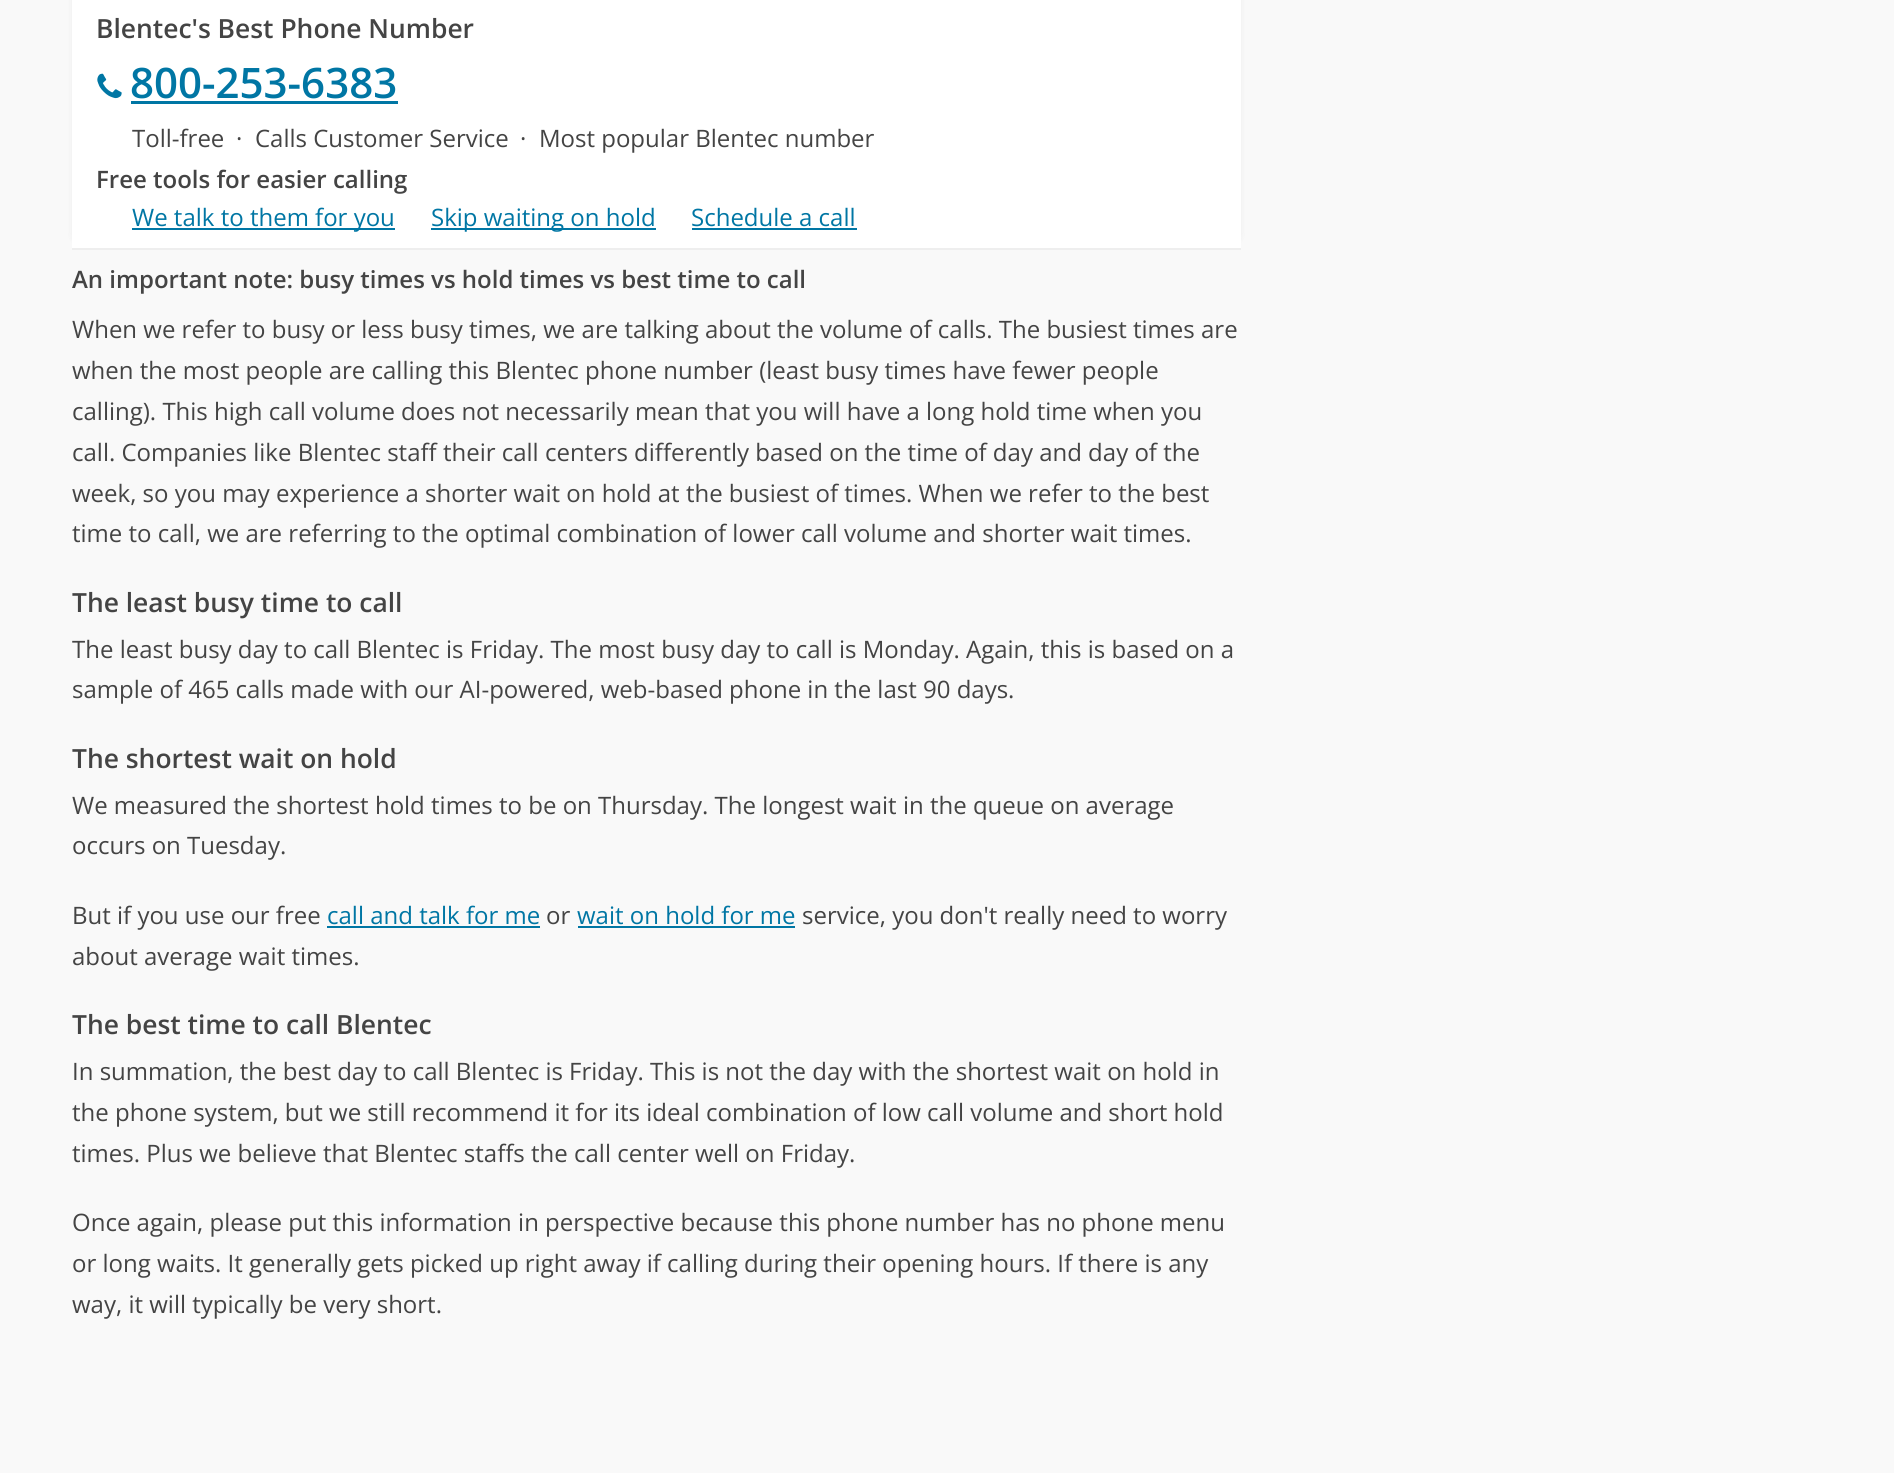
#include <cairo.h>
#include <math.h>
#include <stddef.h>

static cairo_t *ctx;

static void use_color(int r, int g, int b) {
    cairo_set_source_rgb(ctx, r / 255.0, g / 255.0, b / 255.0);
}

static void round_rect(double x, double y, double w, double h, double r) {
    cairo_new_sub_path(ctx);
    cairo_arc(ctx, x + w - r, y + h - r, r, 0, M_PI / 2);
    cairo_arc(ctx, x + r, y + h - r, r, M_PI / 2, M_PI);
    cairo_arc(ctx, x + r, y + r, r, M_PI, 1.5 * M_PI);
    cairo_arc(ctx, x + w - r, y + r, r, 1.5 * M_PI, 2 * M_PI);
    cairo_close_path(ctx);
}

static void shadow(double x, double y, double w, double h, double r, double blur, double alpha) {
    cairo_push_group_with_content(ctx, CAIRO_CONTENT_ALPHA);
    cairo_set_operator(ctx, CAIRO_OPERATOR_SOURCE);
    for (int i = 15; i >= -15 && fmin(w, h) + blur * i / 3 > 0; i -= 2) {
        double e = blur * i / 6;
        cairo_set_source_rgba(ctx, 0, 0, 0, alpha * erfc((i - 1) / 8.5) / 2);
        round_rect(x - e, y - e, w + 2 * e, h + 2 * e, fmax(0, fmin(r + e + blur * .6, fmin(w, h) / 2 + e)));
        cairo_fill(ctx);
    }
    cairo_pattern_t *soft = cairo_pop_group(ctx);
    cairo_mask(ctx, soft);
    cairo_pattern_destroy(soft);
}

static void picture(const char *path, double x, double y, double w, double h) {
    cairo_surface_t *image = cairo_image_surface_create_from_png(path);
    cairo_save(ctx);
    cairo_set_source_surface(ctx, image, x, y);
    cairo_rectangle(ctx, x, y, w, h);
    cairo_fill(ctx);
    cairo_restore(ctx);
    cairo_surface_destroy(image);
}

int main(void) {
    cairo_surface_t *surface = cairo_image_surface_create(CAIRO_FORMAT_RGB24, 1894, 1473);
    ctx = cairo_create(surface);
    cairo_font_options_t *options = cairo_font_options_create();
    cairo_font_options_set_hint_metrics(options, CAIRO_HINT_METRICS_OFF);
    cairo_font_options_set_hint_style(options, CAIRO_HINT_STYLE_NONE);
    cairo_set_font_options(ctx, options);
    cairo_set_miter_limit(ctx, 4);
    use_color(249, 249, 249);
    cairo_paint(ctx);
    use_color(0, 0, 0);
    shadow(72, -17, 1169, 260, 8, 3, 0.05);
    use_color(255, 255, 255);
    cairo_rectangle(ctx, 72, 0, 1169, 248);
    cairo_fill(ctx);
    use_color(238, 238, 238);
    cairo_rectangle(ctx, 72, 248, 1169, 2);
    cairo_fill(ctx);
    cairo_select_font_face(ctx, "Open Sans SemiBold", CAIRO_FONT_SLANT_NORMAL, CAIRO_FONT_WEIGHT_NORMAL);
    cairo_set_font_size(ctx, 26.4);
    use_color(68, 68, 68);
    cairo_move_to(ctx, 96, 38);
    cairo_show_text(ctx, "Blentec's Best Phone Number");
    picture("img1.png", 97, 73, 25, 26);
    cairo_set_font_size(ctx, 42);
    use_color(0, 118, 164);
    cairo_move_to(ctx, 130, 98);
    cairo_show_text(ctx, "800-253-6383");
    cairo_rectangle(ctx, 131, 101, 267, 3);
    cairo_fill(ctx);
    cairo_select_font_face(ctx, "Open Sans", CAIRO_FONT_SLANT_NORMAL, CAIRO_FONT_WEIGHT_NORMAL);
    cairo_set_font_size(ctx, 24);
    use_color(68, 68, 68);
    cairo_move_to(ctx, 132, 147);
    cairo_show_text(ctx, "Toll-free");
    cairo_move_to(ctx, 236, 147);
    cairo_show_text(ctx, "·");
    cairo_move_to(ctx, 255, 147);
    cairo_show_text(ctx, "Calls Customer Service");
    cairo_move_to(ctx, 520, 147);
    cairo_show_text(ctx, "·");
    cairo_move_to(ctx, 539, 147);
    cairo_show_text(ctx, "Most popular Blentec number");
    cairo_select_font_face(ctx, "Open Sans SemiBold", CAIRO_FONT_SLANT_NORMAL, CAIRO_FONT_WEIGHT_NORMAL);
    cairo_move_to(ctx, 96, 188);
    cairo_show_text(ctx, "Free tools for easier calling");
    use_color(0, 118, 164);
    cairo_rectangle(ctx, 132, 228, 263, 2);
    cairo_fill(ctx);
    cairo_select_font_face(ctx, "Open Sans", CAIRO_FONT_SLANT_NORMAL, CAIRO_FONT_WEIGHT_NORMAL);
    cairo_move_to(ctx, 132, 226);
    cairo_show_text(ctx, "We talk to them for you");
    cairo_rectangle(ctx, 431, 228, 225, 2);
    cairo_fill(ctx);
    cairo_move_to(ctx, 431, 226);
    cairo_show_text(ctx, "Skip waiting on hold");
    cairo_move_to(ctx, 691, 226);
    cairo_show_text(ctx, "Schedule a call");
    cairo_rectangle(ctx, 692, 228, 165, 2);
    cairo_fill(ctx);
    cairo_select_font_face(ctx, "Open Sans SemiBold", CAIRO_FONT_SLANT_NORMAL, CAIRO_FONT_WEIGHT_NORMAL);
    use_color(68, 68, 68);
    cairo_move_to(ctx, 72, 288);
    cairo_show_text(ctx, "An important note: busy times vs hold times vs best time to call");
    cairo_select_font_face(ctx, "Open Sans", CAIRO_FONT_SLANT_NORMAL, CAIRO_FONT_WEIGHT_NORMAL);
    cairo_move_to(ctx, 72, 338);
    cairo_show_text(ctx, "When we refer to busy or less busy times, we are talking about the volume of calls. The busiest times are");
    cairo_move_to(ctx, 72, 379);
    cairo_show_text(ctx, "when the most people are calling this Blentec phone number (least busy times have fewer people");
    cairo_move_to(ctx, 72, 420);
    cairo_show_text(ctx, "calling). This high call volume does not necessarily mean that you will have a long hold time when you");
    cairo_move_to(ctx, 72, 461);
    cairo_show_text(ctx, "call. Companies like Blentec staff their call centers differently based on the time of day and day of the");
    cairo_move_to(ctx, 72, 502);
    cairo_show_text(ctx, "week, so you may experience a shorter wait on hold at the busiest of times. When we refer to the best");
    cairo_move_to(ctx, 72, 542);
    cairo_show_text(ctx, "time to call, we are referring to the optimal combination of lower call volume and shorter wait times.");
    cairo_select_font_face(ctx, "Open Sans SemiBold", CAIRO_FONT_SLANT_NORMAL, CAIRO_FONT_WEIGHT_NORMAL);
    cairo_set_font_size(ctx, 26.4);
    cairo_move_to(ctx, 72, 612);
    cairo_show_text(ctx, "The least busy time to call");
    cairo_select_font_face(ctx, "Open Sans", CAIRO_FONT_SLANT_NORMAL, CAIRO_FONT_WEIGHT_NORMAL);
    cairo_set_font_size(ctx, 24);
    cairo_move_to(ctx, 72, 658);
    cairo_show_text(ctx, "The least busy day to call Blentec is Friday. The most busy day to call is Monday. Again, this is based on a");
    cairo_move_to(ctx, 72, 698);
    cairo_show_text(ctx, "sample of 465 calls made with our AI-powered, web-based phone in the last 90 days.");
    cairo_select_font_face(ctx, "Open Sans SemiBold", CAIRO_FONT_SLANT_NORMAL, CAIRO_FONT_WEIGHT_NORMAL);
    cairo_set_font_size(ctx, 26.4);
    cairo_move_to(ctx, 72, 768);
    cairo_show_text(ctx, "The shortest wait on hold");
    cairo_select_font_face(ctx, "Open Sans", CAIRO_FONT_SLANT_NORMAL, CAIRO_FONT_WEIGHT_NORMAL);
    cairo_set_font_size(ctx, 24);
    cairo_move_to(ctx, 72, 814);
    cairo_show_text(ctx, "We measured the shortest hold times to be on Thursday. The longest wait in the queue on average");
    cairo_move_to(ctx, 72, 854);
    cairo_show_text(ctx, "occurs on Tuesday.");
    cairo_move_to(ctx, 72, 924);
    cairo_show_text(ctx, "But if you use our free");
    use_color(0, 118, 164);
    cairo_move_to(ctx, 327, 924);
    cairo_show_text(ctx, "call and talk for me");
    cairo_rectangle(ctx, 327, 926, 213, 2);
    cairo_fill(ctx);
    use_color(68, 68, 68);
    cairo_move_to(ctx, 546, 924);
    cairo_show_text(ctx, "or");
    use_color(0, 118, 164);
    cairo_move_to(ctx, 577, 924);
    cairo_show_text(ctx, "wait on hold for me");
    cairo_rectangle(ctx, 578, 926, 217, 2);
    cairo_fill(ctx);
    use_color(68, 68, 68);
    cairo_move_to(ctx, 802, 924);
    cairo_show_text(ctx, "service, you don't really need to worry");
    cairo_move_to(ctx, 72, 965);
    cairo_show_text(ctx, "about average wait times.");
    cairo_select_font_face(ctx, "Open Sans SemiBold", CAIRO_FONT_SLANT_NORMAL, CAIRO_FONT_WEIGHT_NORMAL);
    cairo_set_font_size(ctx, 26.4);
    cairo_move_to(ctx, 72, 1034);
    cairo_show_text(ctx, "The best time to call Blentec");
    cairo_select_font_face(ctx, "Open Sans", CAIRO_FONT_SLANT_NORMAL, CAIRO_FONT_WEIGHT_NORMAL);
    cairo_set_font_size(ctx, 24);
    cairo_move_to(ctx, 72, 1080);
    cairo_show_text(ctx, "In summation, the best day to call Blentec is Friday. This is not the day with the shortest wait on hold in");
    cairo_move_to(ctx, 72, 1121);
    cairo_show_text(ctx, "the phone system, but we still recommend it for its ideal combination of low call volume and short hold");
    cairo_move_to(ctx, 72, 1162);
    cairo_show_text(ctx, "times. Plus we believe that Blentec staffs the call center well on Friday.");
    cairo_move_to(ctx, 72, 1231);
    cairo_show_text(ctx, "Once again, please put this information in perspective because this phone number has no phone menu");
    cairo_move_to(ctx, 72, 1272);
    cairo_show_text(ctx, "or long waits. It generally gets picked up right away if calling during their opening hours. If there is any");
    cairo_move_to(ctx, 72, 1313);
    cairo_show_text(ctx, "way, it will typically be very short.");
    cairo_surface_write_to_png(surface, "result.png");
    cairo_font_options_destroy(options);
    cairo_destroy(ctx);
    cairo_surface_destroy(surface);
    return 0;
}
